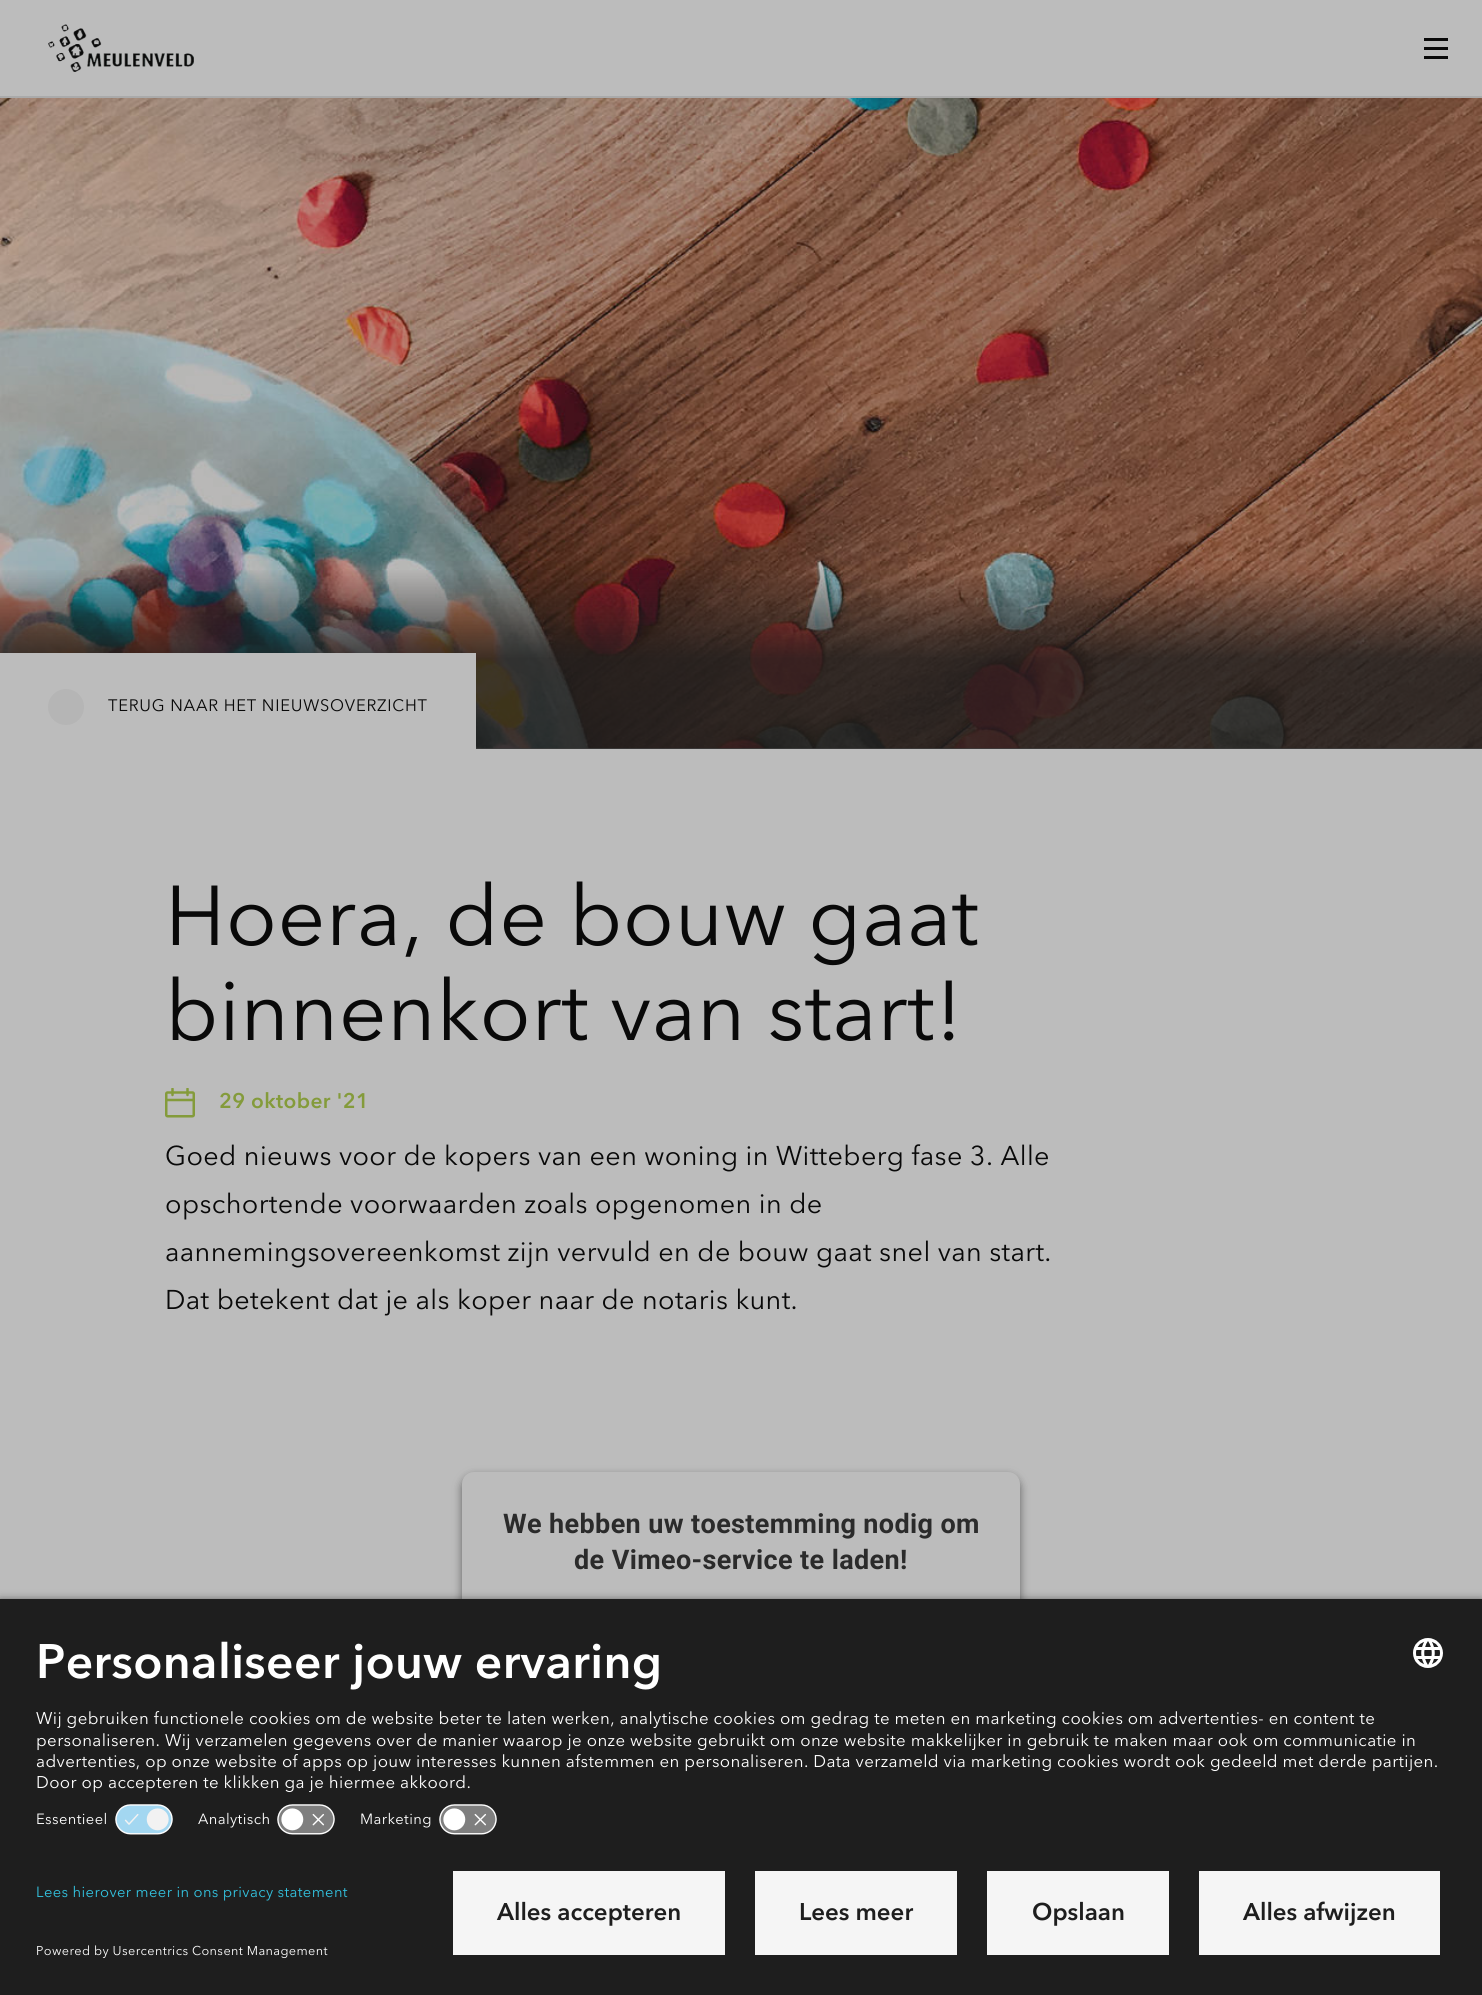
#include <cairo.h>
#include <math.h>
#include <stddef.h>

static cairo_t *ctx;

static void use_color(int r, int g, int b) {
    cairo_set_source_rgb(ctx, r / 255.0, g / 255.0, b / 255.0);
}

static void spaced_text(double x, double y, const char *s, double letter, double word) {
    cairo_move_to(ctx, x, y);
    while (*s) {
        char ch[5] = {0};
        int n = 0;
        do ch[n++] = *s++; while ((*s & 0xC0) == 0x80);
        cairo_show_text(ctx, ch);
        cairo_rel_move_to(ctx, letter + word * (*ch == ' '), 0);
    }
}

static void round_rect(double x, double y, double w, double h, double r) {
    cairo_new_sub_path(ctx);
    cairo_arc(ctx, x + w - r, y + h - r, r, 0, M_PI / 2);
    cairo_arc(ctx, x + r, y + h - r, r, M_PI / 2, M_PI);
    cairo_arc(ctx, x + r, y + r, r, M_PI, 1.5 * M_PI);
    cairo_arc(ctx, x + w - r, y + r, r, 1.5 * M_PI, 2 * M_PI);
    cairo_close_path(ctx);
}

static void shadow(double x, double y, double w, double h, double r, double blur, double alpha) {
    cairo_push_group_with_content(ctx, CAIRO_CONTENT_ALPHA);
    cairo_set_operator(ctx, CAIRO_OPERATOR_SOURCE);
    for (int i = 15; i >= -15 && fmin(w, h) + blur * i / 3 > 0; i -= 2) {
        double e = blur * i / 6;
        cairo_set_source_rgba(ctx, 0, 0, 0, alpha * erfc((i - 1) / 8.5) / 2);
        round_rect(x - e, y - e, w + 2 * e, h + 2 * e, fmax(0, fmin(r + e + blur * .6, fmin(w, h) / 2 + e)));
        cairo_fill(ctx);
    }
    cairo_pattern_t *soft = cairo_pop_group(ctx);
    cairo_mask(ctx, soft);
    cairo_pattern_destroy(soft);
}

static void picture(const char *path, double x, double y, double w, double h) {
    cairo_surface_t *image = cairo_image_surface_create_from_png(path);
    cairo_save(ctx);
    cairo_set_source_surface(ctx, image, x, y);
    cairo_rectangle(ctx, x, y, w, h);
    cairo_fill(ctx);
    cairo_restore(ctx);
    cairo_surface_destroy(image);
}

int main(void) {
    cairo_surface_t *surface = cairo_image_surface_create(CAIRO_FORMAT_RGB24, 1482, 1995);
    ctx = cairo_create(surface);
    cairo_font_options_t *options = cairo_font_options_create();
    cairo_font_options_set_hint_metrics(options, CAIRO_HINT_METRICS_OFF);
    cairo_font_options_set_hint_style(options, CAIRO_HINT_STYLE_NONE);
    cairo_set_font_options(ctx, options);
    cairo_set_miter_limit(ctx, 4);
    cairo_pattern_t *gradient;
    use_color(188, 188, 188);
    cairo_paint(ctx);
    use_color(170, 170, 170);
    cairo_rectangle(ctx, 0, 96, 1482, 2);
    cairo_fill(ctx);
    picture("img1.png", 48, 24, 146, 48);
    use_color(9, 9, 9);
    cairo_rectangle(ctx, 1424, 47, 24, 3);
    cairo_fill(ctx);
    cairo_rectangle(ctx, 1424, 38, 24, 3);
    cairo_fill(ctx);
    cairo_rectangle(ctx, 1424, 56, 24, 3);
    cairo_fill(ctx);
    picture("img2.png", 0, 98, 1482, 651);
    gradient = cairo_pattern_create_linear(741, 568, 741, 749);
    cairo_pattern_add_color_stop_rgba(gradient, 0, 0.118, 0.118, 0.118, 0);
    cairo_pattern_add_color_stop_rgba(gradient, 0.5, 0.118, 0.118, 0.118, 0.8);
    cairo_pattern_add_color_stop_rgba(gradient, 1, 0.118, 0.118, 0.118, 0.8);
    cairo_set_source(ctx, gradient);
    cairo_pattern_destroy(gradient);
    cairo_rectangle(ctx, 0, 570, 1482, 179);
    cairo_fill(ctx);
    use_color(188, 188, 188);
    cairo_rectangle(ctx, 0, 653, 476, 96);
    cairo_fill(ctx);
    use_color(181, 181, 181);
    cairo_arc(ctx, 66, 707, 18, 0, 2 * M_PI);
    cairo_fill(ctx);
    cairo_select_font_face(ctx, "Avenir Next", CAIRO_FONT_SLANT_NORMAL, CAIRO_FONT_WEIGHT_NORMAL);
    cairo_set_font_size(ctx, 16.5);
    use_color(9, 9, 9);
    spaced_text(108, 711, "TERUG NAAR HET NIEUWSOVERZICHT", 0.75, 0);
    cairo_set_font_size(ctx, 84);
    spaced_text(165, 945, "Hoera, de bouw gaat", 0.38, 0);
    spaced_text(165, 1040, "binnenkort van start!", 0.38, 0);
    picture("img3.png", 165, 1088, 30, 30);
    cairo_select_font_face(ctx, "Avenir Next", CAIRO_FONT_SLANT_NORMAL, CAIRO_FONT_WEIGHT_BOLD);
    cairo_set_font_size(ctx, 21);
    use_color(132, 155, 59);
    spaced_text(219, 1108, "29 oktober '21", 0.38, 0);
    cairo_select_font_face(ctx, "Avenir Next", CAIRO_FONT_SLANT_NORMAL, CAIRO_FONT_WEIGHT_NORMAL);
    cairo_set_font_size(ctx, 27);
    use_color(9, 9, 9);
    spaced_text(165, 1165, "Goed nieuws voor de kopers van een woning in Witteberg fase 3. Alle", 0.38, 0);
    spaced_text(165, 1213, "opschortende voorwaarden zoals opgenomen in de", 0.38, 0);
    spaced_text(165, 1261, "aannemingsovereenkomst zijn vervuld en de bouw gaat snel van start.", 0.38, 0);
    spaced_text(165, 1309, "Dat betekent dat je als koper naar de notaris kunt.", 0.38, 0);
    use_color(9, 9, 9);
    shadow(462, 1476, 558, 428, 12, 4.5, 0.5);
    use_color(188, 188, 188);
    round_rect(462, 1472, 558, 427, 12);
    cairo_fill(ctx);
    cairo_select_font_face(ctx, "Roboto", CAIRO_FONT_SLANT_NORMAL, CAIRO_FONT_WEIGHT_BOLD);
    use_color(43, 43, 43);
    spaced_text(503, 1533, "We hebben uw toestemming nodig om", 0.38, 0);
    spaced_text(574, 1569, "de Vimeo-service te laden!", 0.38, 0);
    use_color(0, 0, 0);
    shadow(0, 1602, 1482, 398, 0, 5, 0.8);
    use_color(30, 30, 30);
    cairo_rectangle(ctx, 0, 1599, 1482, 396);
    cairo_fill(ctx);
    cairo_select_font_face(ctx, "Avenir Next", CAIRO_FONT_SLANT_NORMAL, CAIRO_FONT_WEIGHT_BOLD);
    cairo_set_font_size(ctx, 48);
    use_color(255, 255, 255);
    spaced_text(36, 1678, "Personaliseer jouw ervaring", 0.38, 0);
    picture("img4.png", 1413, 1638, 30, 30);
    cairo_select_font_face(ctx, "Avenir Next", CAIRO_FONT_SLANT_NORMAL, CAIRO_FONT_WEIGHT_NORMAL);
    cairo_set_font_size(ctx, 16.88);
    spaced_text(36, 1724, "Wij gebruiken functionele cookies om de website beter te laten werken, analytische cookies om gedrag te meten en marketing cookies om advertenties- en content te", 0.38, 0);
    spaced_text(36, 1746, "personaliseren. Wij verzamelen gegevens over de manier waarop je onze website gebruikt om onze website makkelijker in gebruik te maken maar ook om communicatie in", 0.38, 0);
    spaced_text(36, 1767, "advertenties, op onze website of apps op jouw interesses kunnen afstemmen en personaliseren. Data verzameld via marketing cookies wordt ook gedeeld met derde partijen.", 0.38, 0);
    spaced_text(36, 1788, "Door op accepteren te klikken ga je hiermee akkoord.", 0.38, 0);
    cairo_set_font_size(ctx, 14.75);
    spaced_text(36, 1824, "Essentieel", 0.38, 0);
    picture("img5.png", 115, 1804, 58, 31);
    spaced_text(198, 1824, "Analytisch", 0.38, 0);
    picture("img6.png", 277, 1804, 58, 31);
    spaced_text(360, 1824, "Marketing", 0.38, 0);
    picture("img6.png", 439, 1804, 58, 31);
    use_color(50, 193, 222);
    spaced_text(36, 1897, "Lees hierover meer in ons privacy statement", 0.38, 0);
    cairo_set_font_size(ctx, 12.7);
    use_color(255, 255, 255);
    spaced_text(36, 1955, "Powered by Usercentrics Consent Management", 0.38, 0);
    use_color(245, 245, 245);
    cairo_rectangle(ctx, 453, 1871, 272, 84);
    cairo_fill(ctx);
    cairo_select_font_face(ctx, "Avenir Next", CAIRO_FONT_SLANT_NORMAL, CAIRO_FONT_WEIGHT_BOLD);
    cairo_set_font_size(ctx, 24);
    use_color(30, 30, 30);
    cairo_move_to(ctx, 497, 1920);
    cairo_show_text(ctx, "Alles accepteren");
    use_color(245, 245, 245);
    cairo_rectangle(ctx, 755, 1871, 202, 84);
    cairo_fill(ctx);
    use_color(30, 30, 30);
    cairo_move_to(ctx, 799, 1920);
    cairo_show_text(ctx, "Lees meer");
    use_color(245, 245, 245);
    cairo_rectangle(ctx, 987, 1871, 182, 84);
    cairo_fill(ctx);
    use_color(30, 30, 30);
    cairo_move_to(ctx, 1032, 1920);
    cairo_show_text(ctx, "Opslaan");
    use_color(245, 245, 245);
    cairo_rectangle(ctx, 1199, 1871, 241, 84);
    cairo_fill(ctx);
    use_color(30, 30, 30);
    cairo_move_to(ctx, 1243, 1920);
    cairo_show_text(ctx, "Alles afwijzen");
    cairo_surface_write_to_png(surface, "result.png");
    cairo_font_options_destroy(options);
    cairo_destroy(ctx);
    cairo_surface_destroy(surface);
    return 0;
}
